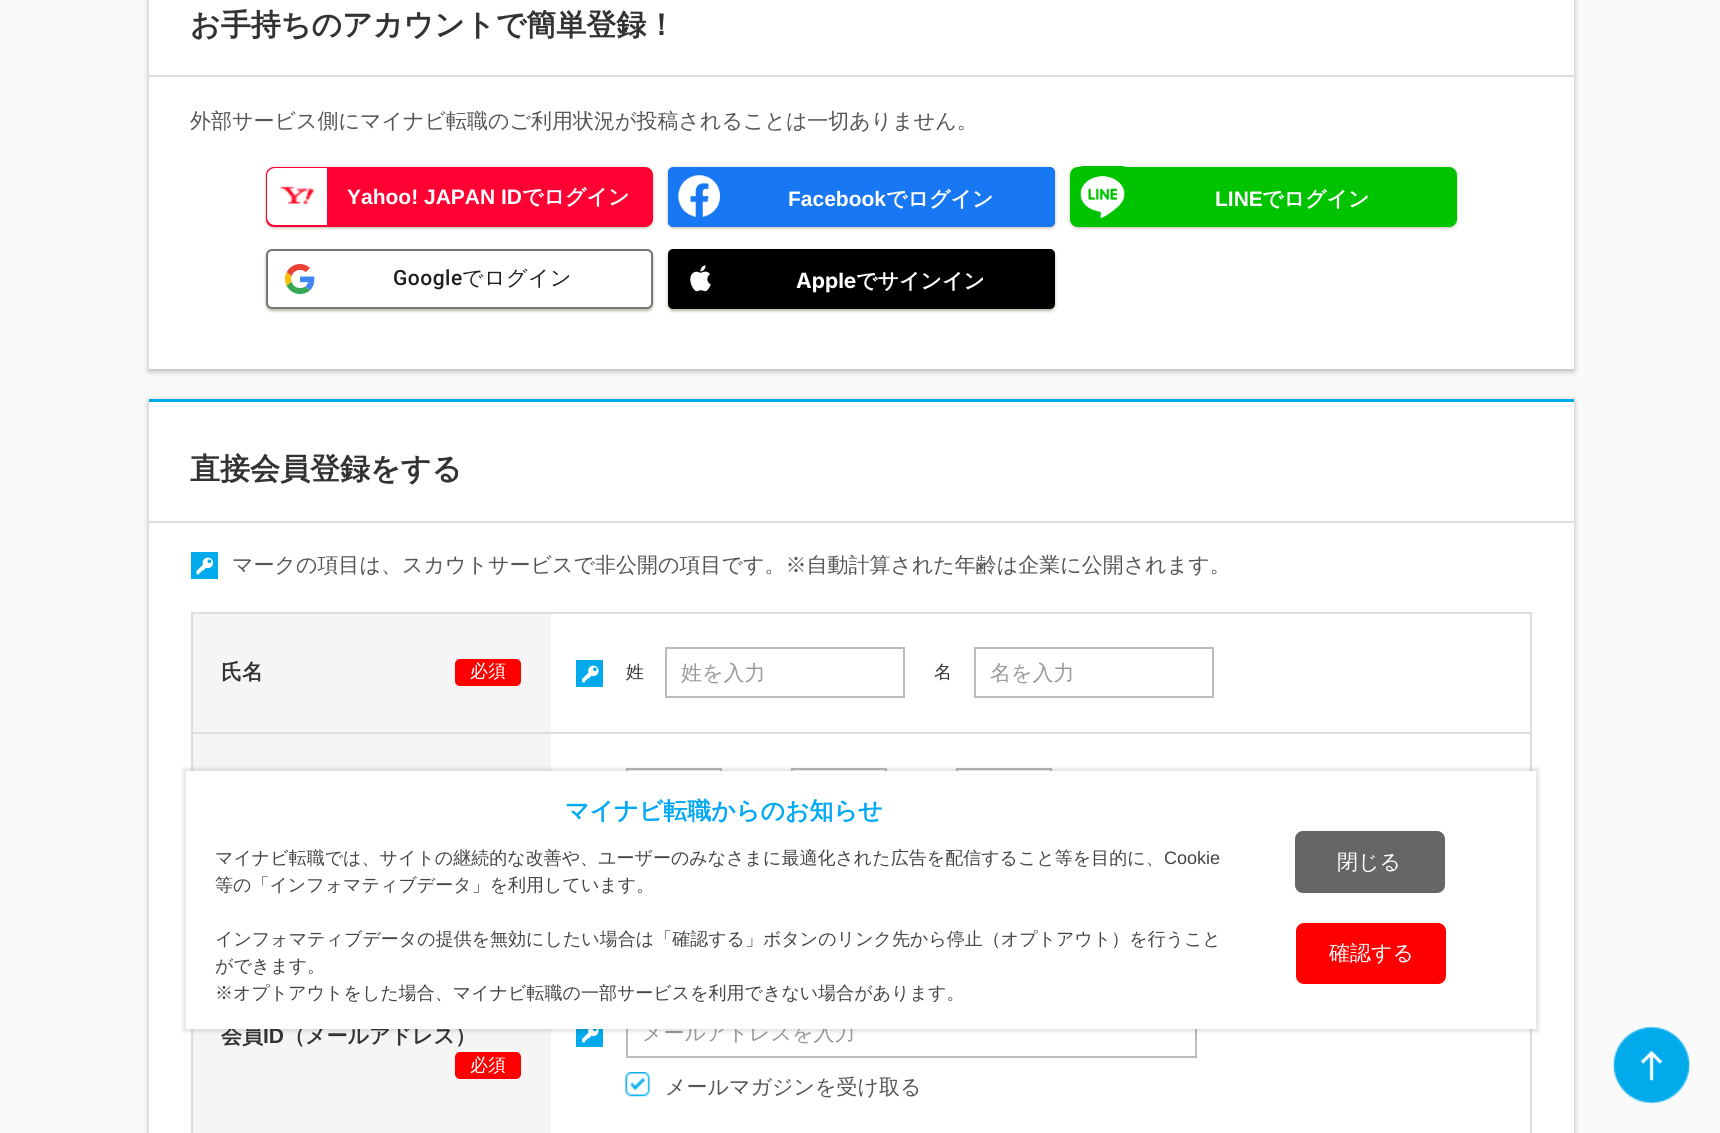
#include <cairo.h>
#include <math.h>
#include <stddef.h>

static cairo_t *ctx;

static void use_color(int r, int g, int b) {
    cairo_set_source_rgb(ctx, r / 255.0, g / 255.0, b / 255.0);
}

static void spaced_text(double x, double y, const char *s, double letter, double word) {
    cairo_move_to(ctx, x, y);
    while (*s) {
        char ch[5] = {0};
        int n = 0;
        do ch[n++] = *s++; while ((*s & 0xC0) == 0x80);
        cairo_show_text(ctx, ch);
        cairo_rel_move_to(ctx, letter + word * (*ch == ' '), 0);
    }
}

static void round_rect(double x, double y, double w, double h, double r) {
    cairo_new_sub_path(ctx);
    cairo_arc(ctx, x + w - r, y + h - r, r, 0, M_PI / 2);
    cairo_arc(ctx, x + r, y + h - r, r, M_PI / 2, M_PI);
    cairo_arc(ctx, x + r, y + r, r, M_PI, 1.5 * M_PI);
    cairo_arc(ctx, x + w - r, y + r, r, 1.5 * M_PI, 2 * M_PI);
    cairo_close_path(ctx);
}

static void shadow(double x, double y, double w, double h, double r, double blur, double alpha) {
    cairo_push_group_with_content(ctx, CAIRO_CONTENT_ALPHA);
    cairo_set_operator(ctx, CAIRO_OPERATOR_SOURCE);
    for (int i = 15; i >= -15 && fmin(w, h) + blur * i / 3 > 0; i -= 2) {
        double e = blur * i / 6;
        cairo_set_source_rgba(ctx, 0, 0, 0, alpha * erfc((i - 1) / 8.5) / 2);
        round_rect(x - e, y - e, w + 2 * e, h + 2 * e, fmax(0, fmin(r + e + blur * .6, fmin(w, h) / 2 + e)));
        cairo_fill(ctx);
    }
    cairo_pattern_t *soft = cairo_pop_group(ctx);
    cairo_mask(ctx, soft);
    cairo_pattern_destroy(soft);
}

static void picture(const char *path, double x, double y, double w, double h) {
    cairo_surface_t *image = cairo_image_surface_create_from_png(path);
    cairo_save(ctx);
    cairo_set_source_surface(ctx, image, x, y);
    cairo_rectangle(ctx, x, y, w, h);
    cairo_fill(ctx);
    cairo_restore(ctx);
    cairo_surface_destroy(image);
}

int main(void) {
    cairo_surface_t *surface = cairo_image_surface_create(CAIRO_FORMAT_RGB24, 1720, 1133);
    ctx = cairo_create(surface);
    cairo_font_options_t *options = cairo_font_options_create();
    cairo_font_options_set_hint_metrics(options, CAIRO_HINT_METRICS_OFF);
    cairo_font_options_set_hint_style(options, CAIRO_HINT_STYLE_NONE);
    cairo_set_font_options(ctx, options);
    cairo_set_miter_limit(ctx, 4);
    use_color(250, 250, 251);
    cairo_paint(ctx);
    use_color(0, 0, 0);
    shadow(149, -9, 1425, 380, 0, 3, 0.3);
    use_color(255, 255, 255);
    cairo_rectangle(ctx, 149, 0, 1425, 369);
    cairo_fill(ctx);
    use_color(221, 221, 221);
    cairo_rectangle(ctx, 149, 75, 1425, 2);
    cairo_fill(ctx);
    cairo_select_font_face(ctx, "WenQuanYi Zen Hei", CAIRO_FONT_SLANT_NORMAL, CAIRO_FONT_WEIGHT_BOLD);
    cairo_set_font_size(ctx, 30);
    use_color(51, 51, 51);
    cairo_move_to(ctx, 190, 35);
    cairo_show_text(ctx, "お手持ちのアカウントで簡単登録！");
    cairo_select_font_face(ctx, "WenQuanYi Zen Hei Medium", CAIRO_FONT_SLANT_NORMAL, CAIRO_FONT_WEIGHT_NORMAL);
    cairo_set_font_size(ctx, 21);
    use_color(85, 85, 85);
    cairo_move_to(ctx, 190, 128);
    cairo_show_text(ctx, "外部サービス側にマイナビ転職のご利用状況が投稿されることは一切ありません。");
    use_color(187, 182, 168);
    shadow(266, 168, 387, 60, 8, 1.5, 1);
    use_color(255, 0, 51);
    round_rect(267, 168, 385, 58, 7);
    cairo_fill_preserve(ctx);
    cairo_stroke(ctx);
    use_color(255, 255, 255);
    cairo_new_path(ctx);
    cairo_move_to(ctx, 275, 168);
    cairo_line_to(ctx, 327, 168);
    cairo_line_to(ctx, 327, 225);
    cairo_line_to(ctx, 275, 225);
    cairo_curve_to(ctx, 270.5, 225, 267, 221.5, 267, 217);
    cairo_line_to(ctx, 267, 176);
    cairo_curve_to(ctx, 267, 171.5, 270.5, 168, 275, 168);
    cairo_close_path(ctx);
    cairo_fill(ctx);
    picture("img1.png", 280, 186, 35, 20);
    cairo_select_font_face(ctx, "Liberation Sans", CAIRO_FONT_SLANT_NORMAL, CAIRO_FONT_WEIGHT_BOLD);
    cairo_move_to(ctx, 347, 204);
    cairo_show_text(ctx, "Yahoo! JAPAN ID");
    cairo_select_font_face(ctx, "WenQuanYi Zen Hei", CAIRO_FONT_SLANT_NORMAL, CAIRO_FONT_WEIGHT_BOLD);
    cairo_move_to(ctx, 522, 204);
    cairo_show_text(ctx, "でログイン");
    use_color(187, 182, 168);
    shadow(668, 168, 387, 60, 5, 1.5, 1);
    use_color(24, 119, 242);
    round_rect(669, 168, 385, 58, 4);
    cairo_fill_preserve(ctx);
    cairo_stroke(ctx);
    picture("img2.png", 678, 175, 42, 42);
    cairo_select_font_face(ctx, "Liberation Sans", CAIRO_FONT_SLANT_NORMAL, CAIRO_FONT_WEIGHT_BOLD);
    use_color(255, 255, 255);
    cairo_move_to(ctx, 788, 206);
    cairo_show_text(ctx, "Facebook");
    cairo_select_font_face(ctx, "WenQuanYi Zen Hei", CAIRO_FONT_SLANT_NORMAL, CAIRO_FONT_WEIGHT_BOLD);
    cairo_move_to(ctx, 886, 206);
    cairo_show_text(ctx, "でログイン");
    use_color(187, 182, 168);
    shadow(1070, 168, 387, 60, 8, 1.5, 1);
    use_color(0, 195, 0);
    round_rect(1071, 168, 385, 58, 7);
    cairo_fill_preserve(ctx);
    cairo_stroke(ctx);
    picture("img3.png", 1078, 166, 49, 52);
    cairo_select_font_face(ctx, "Liberation Sans", CAIRO_FONT_SLANT_NORMAL, CAIRO_FONT_WEIGHT_BOLD);
    use_color(255, 255, 255);
    cairo_move_to(ctx, 1215, 206);
    cairo_show_text(ctx, "LINE");
    cairo_select_font_face(ctx, "WenQuanYi Zen Hei", CAIRO_FONT_SLANT_NORMAL, CAIRO_FONT_WEIGHT_BOLD);
    cairo_move_to(ctx, 1262, 206);
    cairo_show_text(ctx, "でログイン");
    use_color(187, 182, 168);
    shadow(266, 251, 387, 60, 6, 1.5, 1);
    use_color(255, 255, 255);
    round_rect(267, 250, 385, 58, 5);
    cairo_fill_preserve(ctx);
    use_color(116, 119, 117);
    cairo_stroke(ctx);
    picture("img4.png", 285, 264, 30, 30);
    cairo_select_font_face(ctx, "Roboto Medium", CAIRO_FONT_SLANT_NORMAL, CAIRO_FONT_WEIGHT_NORMAL);
    use_color(31, 31, 31);
    spaced_text(393, 285, "Google", 0.5, 0);
    cairo_select_font_face(ctx, "WenQuanYi Zen Hei Medium", CAIRO_FONT_SLANT_NORMAL, CAIRO_FONT_WEIGHT_NORMAL);
    spaced_text(462, 285, "でログイン", 0.5, 0);
    use_color(187, 182, 168);
    shadow(668, 251, 387, 60, 5, 1.5, 1);
    use_color(0, 0, 0);
    round_rect(669, 250, 385, 58, 4);
    cairo_fill_preserve(ctx);
    cairo_stroke(ctx);
    picture("img5.png", 690, 265, 21, 27);
    cairo_select_font_face(ctx, "Inter", CAIRO_FONT_SLANT_NORMAL, CAIRO_FONT_WEIGHT_BOLD);
    use_color(255, 255, 255);
    cairo_move_to(ctx, 796, 288);
    cairo_show_text(ctx, "Apple");
    cairo_select_font_face(ctx, "WenQuanYi Zen Hei", CAIRO_FONT_SLANT_NORMAL, CAIRO_FONT_WEIGHT_BOLD);
    cairo_move_to(ctx, 856, 288);
    cairo_show_text(ctx, "でサインイン");
    use_color(0, 0, 0);
    shadow(149, 401, 1425, 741, 0, 3, 0.3);
    use_color(255, 255, 255);
    cairo_rectangle(ctx, 149, 402, 1425, 731);
    cairo_fill(ctx);
    use_color(0, 170, 235);
    cairo_rectangle(ctx, 149, 399, 1425, 3);
    cairo_fill(ctx);
    use_color(221, 221, 221);
    cairo_rectangle(ctx, 149, 521, 1425, 2);
    cairo_fill(ctx);
    cairo_set_font_size(ctx, 30);
    use_color(51, 51, 51);
    cairo_move_to(ctx, 190, 479);
    cairo_show_text(ctx, "直接会員登録をする");
    use_color(0, 170, 235);
    cairo_rectangle(ctx, 191, 552, 27, 27);
    cairo_fill(ctx);
    picture("img6.png", 196, 557, 18, 18);
    cairo_select_font_face(ctx, "WenQuanYi Zen Hei Medium", CAIRO_FONT_SLANT_NORMAL, CAIRO_FONT_WEIGHT_NORMAL);
    cairo_set_font_size(ctx, 21);
    use_color(85, 85, 85);
    cairo_move_to(ctx, 232, 572);
    cairo_show_text(ctx, "マークの項目は、スカウトサービスで非公開の項目です。※自動計算された年齢は企業に公開されます。");
    use_color(221, 221, 221);
    cairo_rectangle(ctx, 191, 612, 1341, 2);
    cairo_fill(ctx);
    cairo_rectangle(ctx, 1530, 612, 2, 521);
    cairo_fill(ctx);
    cairo_rectangle(ctx, 191, 612, 2, 521);
    cairo_fill(ctx);
    use_color(245, 245, 245);
    cairo_rectangle(ctx, 193, 614, 358, 118);
    cairo_fill(ctx);
    cairo_select_font_face(ctx, "WenQuanYi Zen Hei", CAIRO_FONT_SLANT_NORMAL, CAIRO_FONT_WEIGHT_BOLD);
    use_color(51, 51, 51);
    cairo_move_to(ctx, 221, 679);
    cairo_show_text(ctx, "氏名");
    use_color(255, 0, 0);
    round_rect(455, 659, 66, 27, 5);
    cairo_fill(ctx);
    cairo_select_font_face(ctx, "WenQuanYi Zen Hei Medium", CAIRO_FONT_SLANT_NORMAL, CAIRO_FONT_WEIGHT_NORMAL);
    cairo_set_font_size(ctx, 18);
    use_color(255, 255, 255);
    cairo_move_to(ctx, 470, 677);
    cairo_show_text(ctx, "必須");
    use_color(221, 221, 221);
    cairo_rectangle(ctx, 191, 732, 1341, 2);
    cairo_fill(ctx);
    use_color(0, 170, 235);
    cairo_rectangle(ctx, 576, 660, 27, 27);
    cairo_fill(ctx);
    picture("img7.png", 581, 665, 18, 18);
    use_color(51, 51, 51);
    cairo_move_to(ctx, 626, 678);
    cairo_show_text(ctx, "姓");
    cairo_rectangle(ctx, 666, 648, 238, 49);
    use_color(187, 187, 187);
    cairo_stroke(ctx);
    cairo_set_font_size(ctx, 21);
    use_color(153, 153, 153);
    cairo_move_to(ctx, 681, 680);
    cairo_show_text(ctx, "姓を入力");
    cairo_set_font_size(ctx, 18);
    use_color(51, 51, 51);
    cairo_move_to(ctx, 934, 678);
    cairo_show_text(ctx, "名");
    cairo_rectangle(ctx, 975, 648, 238, 49);
    use_color(187, 187, 187);
    cairo_stroke(ctx);
    cairo_set_font_size(ctx, 21);
    use_color(153, 153, 153);
    cairo_move_to(ctx, 990, 680);
    cairo_show_text(ctx, "名を入力");
    use_color(245, 245, 245);
    cairo_rectangle(ctx, 193, 734, 358, 37);
    cairo_fill(ctx);
    cairo_rectangle(ctx, 627, 769, 94, 49);
    use_color(187, 187, 187);
    cairo_stroke(ctx);
    cairo_rectangle(ctx, 792, 769, 94, 49);
    cairo_stroke(ctx);
    cairo_rectangle(ctx, 957, 769, 94, 49);
    cairo_stroke(ctx);
    use_color(245, 245, 245);
    cairo_rectangle(ctx, 193, 1029, 358, 104);
    cairo_fill(ctx);
    cairo_select_font_face(ctx, "WenQuanYi Zen Hei", CAIRO_FONT_SLANT_NORMAL, CAIRO_FONT_WEIGHT_BOLD);
    use_color(51, 51, 51);
    cairo_move_to(ctx, 221, 1043);
    cairo_show_text(ctx, "会員");
    cairo_select_font_face(ctx, "Liberation Sans", CAIRO_FONT_SLANT_NORMAL, CAIRO_FONT_WEIGHT_BOLD);
    cairo_move_to(ctx, 263, 1043);
    cairo_show_text(ctx, "ID");
    cairo_select_font_face(ctx, "WenQuanYi Zen Hei", CAIRO_FONT_SLANT_NORMAL, CAIRO_FONT_WEIGHT_BOLD);
    cairo_move_to(ctx, 284, 1043);
    cairo_show_text(ctx, "（メールアドレス）");
    use_color(255, 0, 0);
    round_rect(455, 1052, 66, 27, 5);
    cairo_fill(ctx);
    cairo_select_font_face(ctx, "WenQuanYi Zen Hei Medium", CAIRO_FONT_SLANT_NORMAL, CAIRO_FONT_WEIGHT_NORMAL);
    cairo_set_font_size(ctx, 18);
    use_color(255, 255, 255);
    cairo_move_to(ctx, 470, 1071);
    cairo_show_text(ctx, "必須");
    use_color(0, 170, 235);
    cairo_rectangle(ctx, 576, 1029, 27, 18);
    cairo_fill(ctx);
    picture("img8.png", 581, 1029, 18, 14);
    cairo_rectangle(ctx, 627, 1008, 569, 49);
    use_color(187, 187, 187);
    cairo_stroke(ctx);
    cairo_set_font_size(ctx, 21);
    use_color(153, 153, 153);
    cairo_move_to(ctx, 642, 1040);
    cairo_show_text(ctx, "メールアドレスを入力");
    picture("img9.png", 625, 1072, 25, 25);
    use_color(85, 85, 85);
    cairo_move_to(ctx, 665, 1094);
    cairo_show_text(ctx, "メールマガジンを受け取る");
    use_color(0, 0, 0);
    shadow(183, 768, 1356, 264, 0, 1.5, 0.1);
    use_color(255, 255, 255);
    cairo_rectangle(ctx, 186, 771, 1350, 258);
    cairo_fill(ctx);
    cairo_select_font_face(ctx, "WenQuanYi Zen Hei", CAIRO_FONT_SLANT_NORMAL, CAIRO_FONT_WEIGHT_BOLD);
    cairo_set_font_size(ctx, 24);
    use_color(3, 169, 244);
    cairo_move_to(ctx, 565, 819);
    cairo_show_text(ctx, "マイナビ転職からのお知らせ");
    cairo_select_font_face(ctx, "WenQuanYi Zen Hei Medium", CAIRO_FONT_SLANT_NORMAL, CAIRO_FONT_WEIGHT_NORMAL);
    cairo_set_font_size(ctx, 18);
    use_color(68, 68, 68);
    cairo_move_to(ctx, 215, 864);
    cairo_show_text(ctx, "マイナビ転職では、サイトの継続的な改善や、ユーザーのみなさまに最適化された広告を配信すること等を目的に、");
    cairo_select_font_face(ctx, "Liberation Sans", CAIRO_FONT_SLANT_NORMAL, CAIRO_FONT_WEIGHT_NORMAL);
    cairo_move_to(ctx, 1164, 864);
    cairo_show_text(ctx, "Cookie");
    cairo_select_font_face(ctx, "WenQuanYi Zen Hei Medium", CAIRO_FONT_SLANT_NORMAL, CAIRO_FONT_WEIGHT_NORMAL);
    cairo_move_to(ctx, 215, 891);
    cairo_show_text(ctx, "等の「インフォマティブデータ」を利用しています。");
    cairo_move_to(ctx, 215, 945);
    cairo_show_text(ctx, "インフォマティブデータの提供を無効にしたい場合は「確認する」ボタンのリンク先から停止（オプトアウト）を行うこと");
    cairo_move_to(ctx, 215, 972);
    cairo_show_text(ctx, "ができます。");
    cairo_move_to(ctx, 215, 999);
    cairo_show_text(ctx, "※オプトアウトをした場合、マイナビ転職の一部サービスを利用できない場合があります。");
    use_color(102, 102, 102);
    round_rect(1295, 831, 150, 62, 8);
    cairo_fill(ctx);
    cairo_set_font_size(ctx, 21);
    use_color(255, 255, 255);
    cairo_move_to(ctx, 1337, 869);
    cairo_show_text(ctx, "閉じる");
    use_color(255, 0, 0);
    round_rect(1296, 923, 150, 61, 8);
    cairo_fill(ctx);
    use_color(255, 255, 255);
    cairo_move_to(ctx, 1329, 960);
    cairo_show_text(ctx, "確認する");
    picture("img10.png", 1612, 1026, 79, 78);
    cairo_surface_write_to_png(surface, "result.png");
    cairo_font_options_destroy(options);
    cairo_destroy(ctx);
    cairo_surface_destroy(surface);
    return 0;
}
